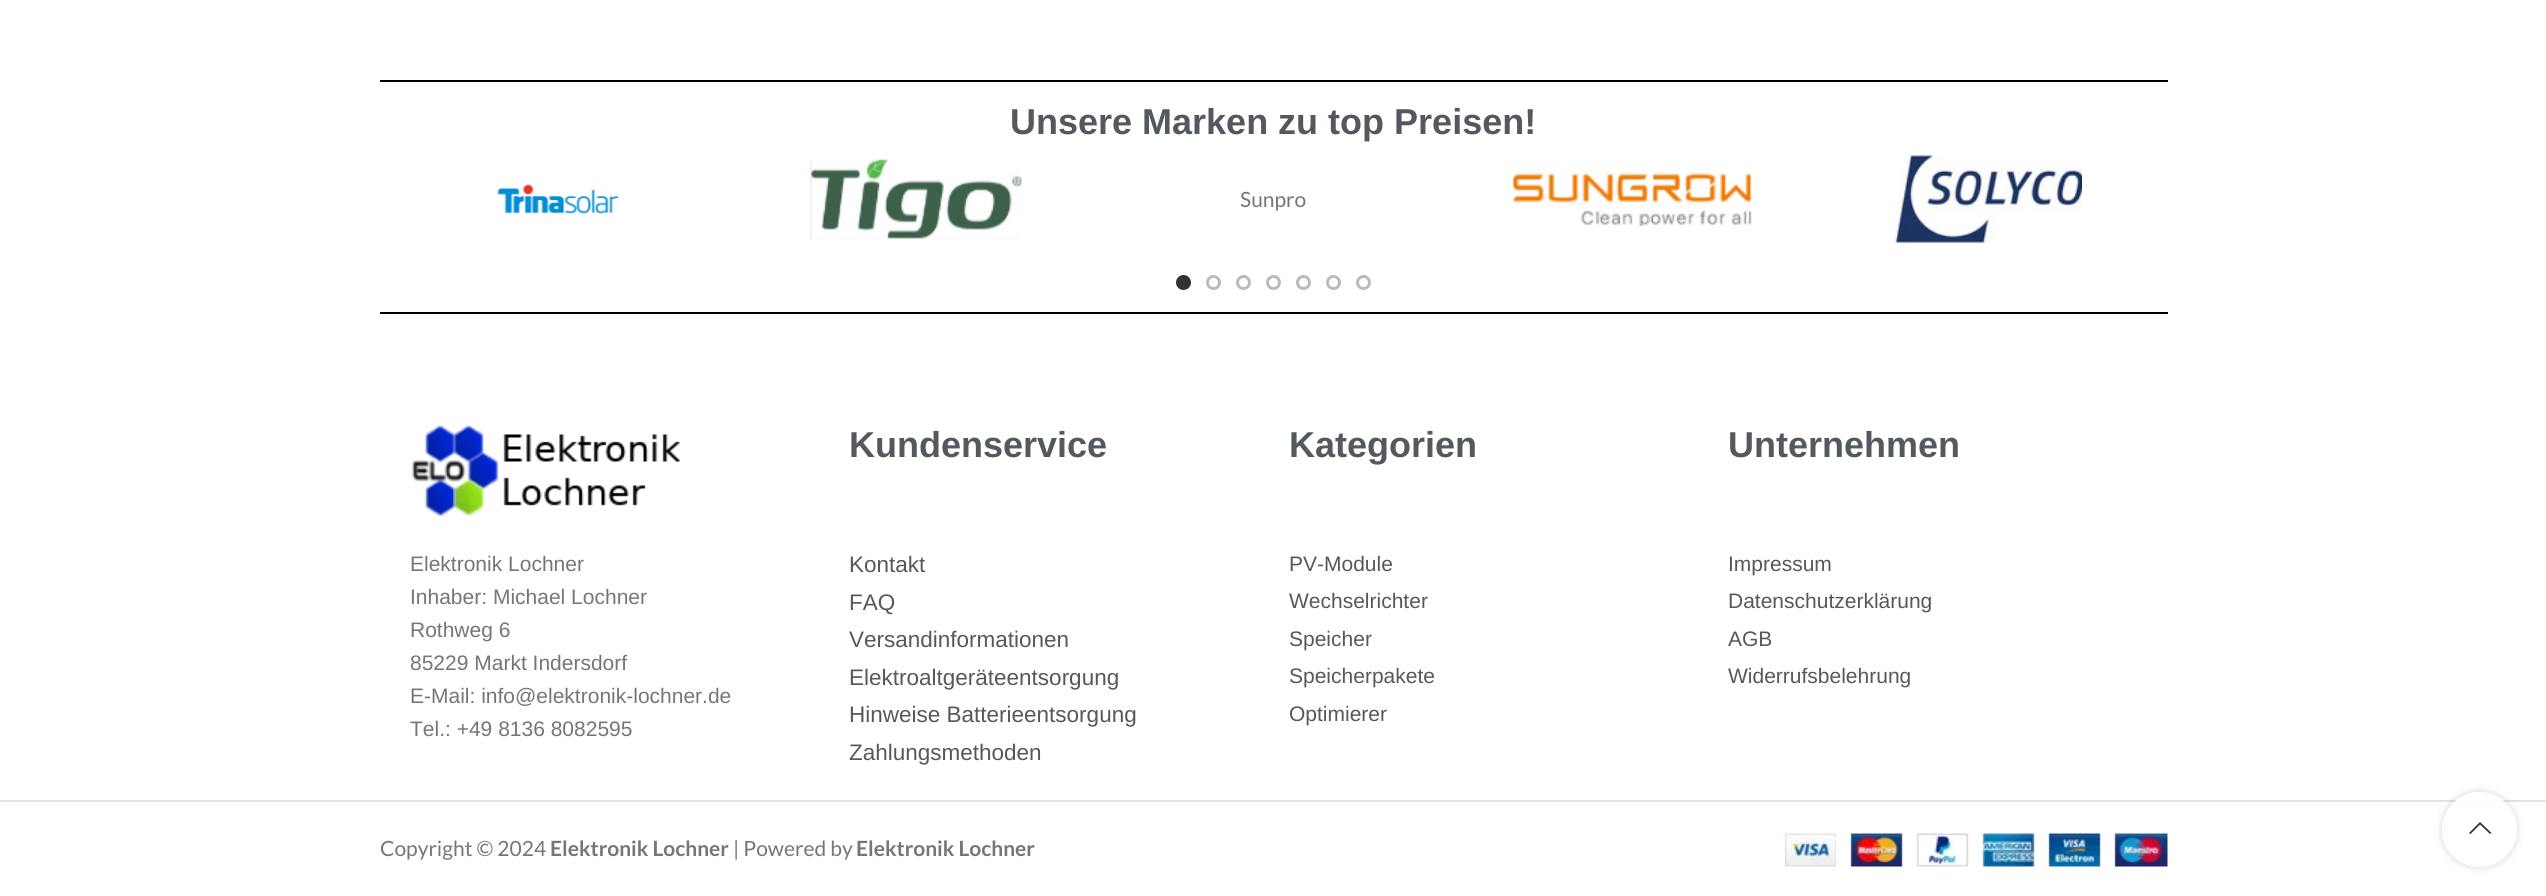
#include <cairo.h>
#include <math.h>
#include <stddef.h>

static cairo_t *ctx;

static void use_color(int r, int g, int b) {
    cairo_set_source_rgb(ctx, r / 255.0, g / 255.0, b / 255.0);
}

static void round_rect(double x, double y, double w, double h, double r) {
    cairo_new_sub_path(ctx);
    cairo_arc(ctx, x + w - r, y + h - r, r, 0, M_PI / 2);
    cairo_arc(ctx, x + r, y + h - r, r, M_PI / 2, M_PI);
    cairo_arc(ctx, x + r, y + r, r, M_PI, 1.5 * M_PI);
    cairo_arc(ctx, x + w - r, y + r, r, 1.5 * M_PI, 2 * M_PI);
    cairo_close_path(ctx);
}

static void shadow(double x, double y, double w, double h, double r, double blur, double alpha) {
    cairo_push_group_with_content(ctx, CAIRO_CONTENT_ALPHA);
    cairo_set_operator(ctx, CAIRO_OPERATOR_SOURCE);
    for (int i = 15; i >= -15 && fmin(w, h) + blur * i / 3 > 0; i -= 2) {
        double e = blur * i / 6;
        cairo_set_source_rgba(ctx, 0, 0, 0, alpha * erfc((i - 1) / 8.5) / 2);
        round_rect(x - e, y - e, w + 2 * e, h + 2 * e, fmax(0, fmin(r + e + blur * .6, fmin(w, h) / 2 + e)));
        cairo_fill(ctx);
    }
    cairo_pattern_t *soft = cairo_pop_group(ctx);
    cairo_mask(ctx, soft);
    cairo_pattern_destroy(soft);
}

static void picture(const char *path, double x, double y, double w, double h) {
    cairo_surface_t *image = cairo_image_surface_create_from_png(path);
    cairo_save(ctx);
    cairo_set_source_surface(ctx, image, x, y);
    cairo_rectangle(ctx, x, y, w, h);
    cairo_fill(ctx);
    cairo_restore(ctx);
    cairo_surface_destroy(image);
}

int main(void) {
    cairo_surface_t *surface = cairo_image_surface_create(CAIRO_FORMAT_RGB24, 2546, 896);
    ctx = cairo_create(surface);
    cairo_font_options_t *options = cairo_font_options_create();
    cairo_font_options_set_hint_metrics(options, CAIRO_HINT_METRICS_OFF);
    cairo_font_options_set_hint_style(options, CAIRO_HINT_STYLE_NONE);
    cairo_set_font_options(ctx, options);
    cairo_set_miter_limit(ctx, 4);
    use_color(255, 255, 255);
    cairo_paint(ctx);
    use_color(0, 0, 0);
    cairo_rectangle(ctx, 380, 80, 1788, 2);
    cairo_fill(ctx);
    cairo_select_font_face(ctx, "Liberation Sans", CAIRO_FONT_SLANT_NORMAL, CAIRO_FONT_WEIGHT_BOLD);
    cairo_set_font_size(ctx, 36);
    use_color(84, 89, 95);
    cairo_move_to(ctx, 1010, 134);
    cairo_show_text(ctx, "Unsere Marken zu top Preisen!");
    picture("img1.png", 497, 184, 122, 30);
    picture("img2.png", 810, 159, 212, 81);
    cairo_select_font_face(ctx, "Lato", CAIRO_FONT_SLANT_NORMAL, CAIRO_FONT_WEIGHT_NORMAL);
    cairo_set_font_size(ctx, 21);
    use_color(118, 118, 118);
    cairo_move_to(ctx, 1240, 207);
    cairo_show_text(ctx, "Sunpro");
    picture("img3.png", 1511, 173, 241, 53);
    picture("img4.png", 1895, 155, 187, 88);
    use_color(51, 51, 51);
    cairo_arc(ctx, 1183.5, 282.5, 6, 0, 2 * M_PI);
    cairo_fill_preserve(ctx);
    cairo_set_line_width(ctx, 3);
    cairo_stroke(ctx);
    cairo_arc(ctx, 1213.5, 282.5, 6, 0, 2 * M_PI);
    use_color(187, 187, 187);
    cairo_stroke(ctx);
    cairo_arc(ctx, 1243.5, 282.5, 6, 0, 2 * M_PI);
    cairo_stroke(ctx);
    cairo_arc(ctx, 1273.5, 282.5, 6, 0, 2 * M_PI);
    cairo_stroke(ctx);
    cairo_arc(ctx, 1303.5, 282.5, 6, 0, 2 * M_PI);
    cairo_stroke(ctx);
    cairo_arc(ctx, 1333.5, 282.5, 6, 0, 2 * M_PI);
    cairo_stroke(ctx);
    cairo_arc(ctx, 1363.5, 282.5, 6, 0, 2 * M_PI);
    cairo_stroke(ctx);
    use_color(0, 0, 0);
    cairo_rectangle(ctx, 380, 312, 1788, 2);
    cairo_fill(ctx);
    picture("img5.png", 412, 425, 268, 91);
    cairo_select_font_face(ctx, "Liberation Sans", CAIRO_FONT_SLANT_NORMAL, CAIRO_FONT_WEIGHT_NORMAL);
    use_color(118, 118, 118);
    cairo_move_to(ctx, 410, 571);
    cairo_show_text(ctx, "Elektronik Lochner");
    cairo_move_to(ctx, 410, 604);
    cairo_show_text(ctx, "Inhaber: Michael Lochner");
    cairo_move_to(ctx, 410, 637);
    cairo_show_text(ctx, "Rothweg 6");
    cairo_move_to(ctx, 410, 670);
    cairo_show_text(ctx, "85229 Markt Indersdorf");
    cairo_move_to(ctx, 410, 703);
    cairo_show_text(ctx, "E-Mail: info@elektronik-lochner.de");
    cairo_move_to(ctx, 410, 736);
    cairo_show_text(ctx, "Tel.: +49 8136 8082595");
    cairo_select_font_face(ctx, "Liberation Sans", CAIRO_FONT_SLANT_NORMAL, CAIRO_FONT_WEIGHT_BOLD);
    cairo_set_font_size(ctx, 36);
    use_color(84, 89, 95);
    cairo_move_to(ctx, 849, 457);
    cairo_show_text(ctx, "Kundenservice");
    cairo_select_font_face(ctx, "Liberation Sans", CAIRO_FONT_SLANT_NORMAL, CAIRO_FONT_WEIGHT_NORMAL);
    cairo_set_font_size(ctx, 22.5);
    cairo_move_to(ctx, 849, 572);
    cairo_show_text(ctx, "Kontakt");
    cairo_move_to(ctx, 849, 610);
    cairo_show_text(ctx, "FAQ");
    cairo_move_to(ctx, 849, 647);
    cairo_show_text(ctx, "Versandinformationen");
    cairo_move_to(ctx, 849, 685);
    cairo_show_text(ctx, "Elektroaltgeräteentsorgung");
    cairo_move_to(ctx, 849, 722);
    cairo_show_text(ctx, "Hinweise Batterieentsorgung");
    cairo_move_to(ctx, 849, 760);
    cairo_show_text(ctx, "Zahlungsmethoden");
    cairo_select_font_face(ctx, "Liberation Sans", CAIRO_FONT_SLANT_NORMAL, CAIRO_FONT_WEIGHT_BOLD);
    cairo_set_font_size(ctx, 36);
    cairo_move_to(ctx, 1289, 457);
    cairo_show_text(ctx, "Kategorien");
    cairo_select_font_face(ctx, "Liberation Sans", CAIRO_FONT_SLANT_NORMAL, CAIRO_FONT_WEIGHT_NORMAL);
    cairo_set_font_size(ctx, 21);
    cairo_move_to(ctx, 1289, 571);
    cairo_show_text(ctx, "PV-Module");
    cairo_move_to(ctx, 1289, 608);
    cairo_show_text(ctx, "Wechselrichter");
    cairo_move_to(ctx, 1289, 646);
    cairo_show_text(ctx, "Speicher");
    cairo_move_to(ctx, 1289, 683);
    cairo_show_text(ctx, "Speicherpakete");
    cairo_move_to(ctx, 1289, 721);
    cairo_show_text(ctx, "Optimierer");
    cairo_select_font_face(ctx, "Liberation Sans", CAIRO_FONT_SLANT_NORMAL, CAIRO_FONT_WEIGHT_BOLD);
    cairo_set_font_size(ctx, 36);
    cairo_move_to(ctx, 1728, 457);
    cairo_show_text(ctx, "Unternehmen");
    cairo_select_font_face(ctx, "Liberation Sans", CAIRO_FONT_SLANT_NORMAL, CAIRO_FONT_WEIGHT_NORMAL);
    cairo_set_font_size(ctx, 21);
    cairo_move_to(ctx, 1728, 571);
    cairo_show_text(ctx, "Impressum");
    cairo_move_to(ctx, 1728, 608);
    cairo_show_text(ctx, "Datenschutzerklärung");
    cairo_move_to(ctx, 1728, 646);
    cairo_show_text(ctx, "AGB");
    cairo_move_to(ctx, 1728, 683);
    cairo_show_text(ctx, "Widerrufsbelehrung");
    use_color(228, 228, 228);
    cairo_rectangle(ctx, 0, 800, 2546, 2);
    cairo_fill(ctx);
    cairo_select_font_face(ctx, "Lato", CAIRO_FONT_SLANT_NORMAL, CAIRO_FONT_WEIGHT_NORMAL);
    use_color(118, 118, 118);
    cairo_move_to(ctx, 380, 856);
    cairo_show_text(ctx, "Copyright © 2024");
    cairo_select_font_face(ctx, "Lato", CAIRO_FONT_SLANT_NORMAL, CAIRO_FONT_WEIGHT_BOLD);
    cairo_move_to(ctx, 550, 856);
    cairo_show_text(ctx, "Elektronik Lochner");
    cairo_select_font_face(ctx, "Lato", CAIRO_FONT_SLANT_NORMAL, CAIRO_FONT_WEIGHT_NORMAL);
    cairo_move_to(ctx, 733, 856);
    cairo_show_text(ctx, "| Powered by");
    cairo_select_font_face(ctx, "Lato", CAIRO_FONT_SLANT_NORMAL, CAIRO_FONT_WEIGHT_BOLD);
    cairo_move_to(ctx, 856, 856);
    cairo_show_text(ctx, "Elektronik Lochner");
    picture("img6.png", 1785, 833, 383, 34);
    cairo_save(ctx);
    cairo_set_fill_rule(ctx, CAIRO_FILL_RULE_EVEN_ODD);
    cairo_new_path(ctx);
    cairo_move_to(ctx, 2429, 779);
    cairo_line_to(ctx, 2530, 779);
    cairo_line_to(ctx, 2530, 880);
    cairo_line_to(ctx, 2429, 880);
    cairo_close_path(ctx);
    cairo_move_to(ctx, 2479.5, 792);
    cairo_curve_to(ctx, 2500, 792, 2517, 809, 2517, 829.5);
    cairo_curve_to(ctx, 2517, 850, 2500, 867, 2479.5, 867);
    cairo_curve_to(ctx, 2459, 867, 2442, 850, 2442, 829.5);
    cairo_curve_to(ctx, 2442, 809, 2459, 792, 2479.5, 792);
    cairo_close_path(ctx);
    cairo_clip(ctx);
    use_color(0, 0, 0);
    shadow(2442, 792, 75, 75, 37.5, 4, 0.17);
    cairo_restore(ctx);
    cairo_set_source_rgba(ctx, 1, 1, 1, 0.9);
    cairo_arc(ctx, 2479.5, 829.5, 37.5, 0, 2 * M_PI);
    cairo_fill(ctx);
    use_color(51, 51, 51);
    cairo_new_path(ctx);
    cairo_move_to(ctx, 2490, 834);
    cairo_line_to(ctx, 2491.5, 833);
    cairo_line_to(ctx, 2480, 822);
    cairo_line_to(ctx, 2469, 833);
    cairo_line_to(ctx, 2470.5, 834);
    cairo_line_to(ctx, 2480, 824.5);
    cairo_close_path(ctx);
    cairo_fill(ctx);
    cairo_surface_write_to_png(surface, "result.png");
    cairo_font_options_destroy(options);
    cairo_destroy(ctx);
    cairo_surface_destroy(surface);
    return 0;
}
